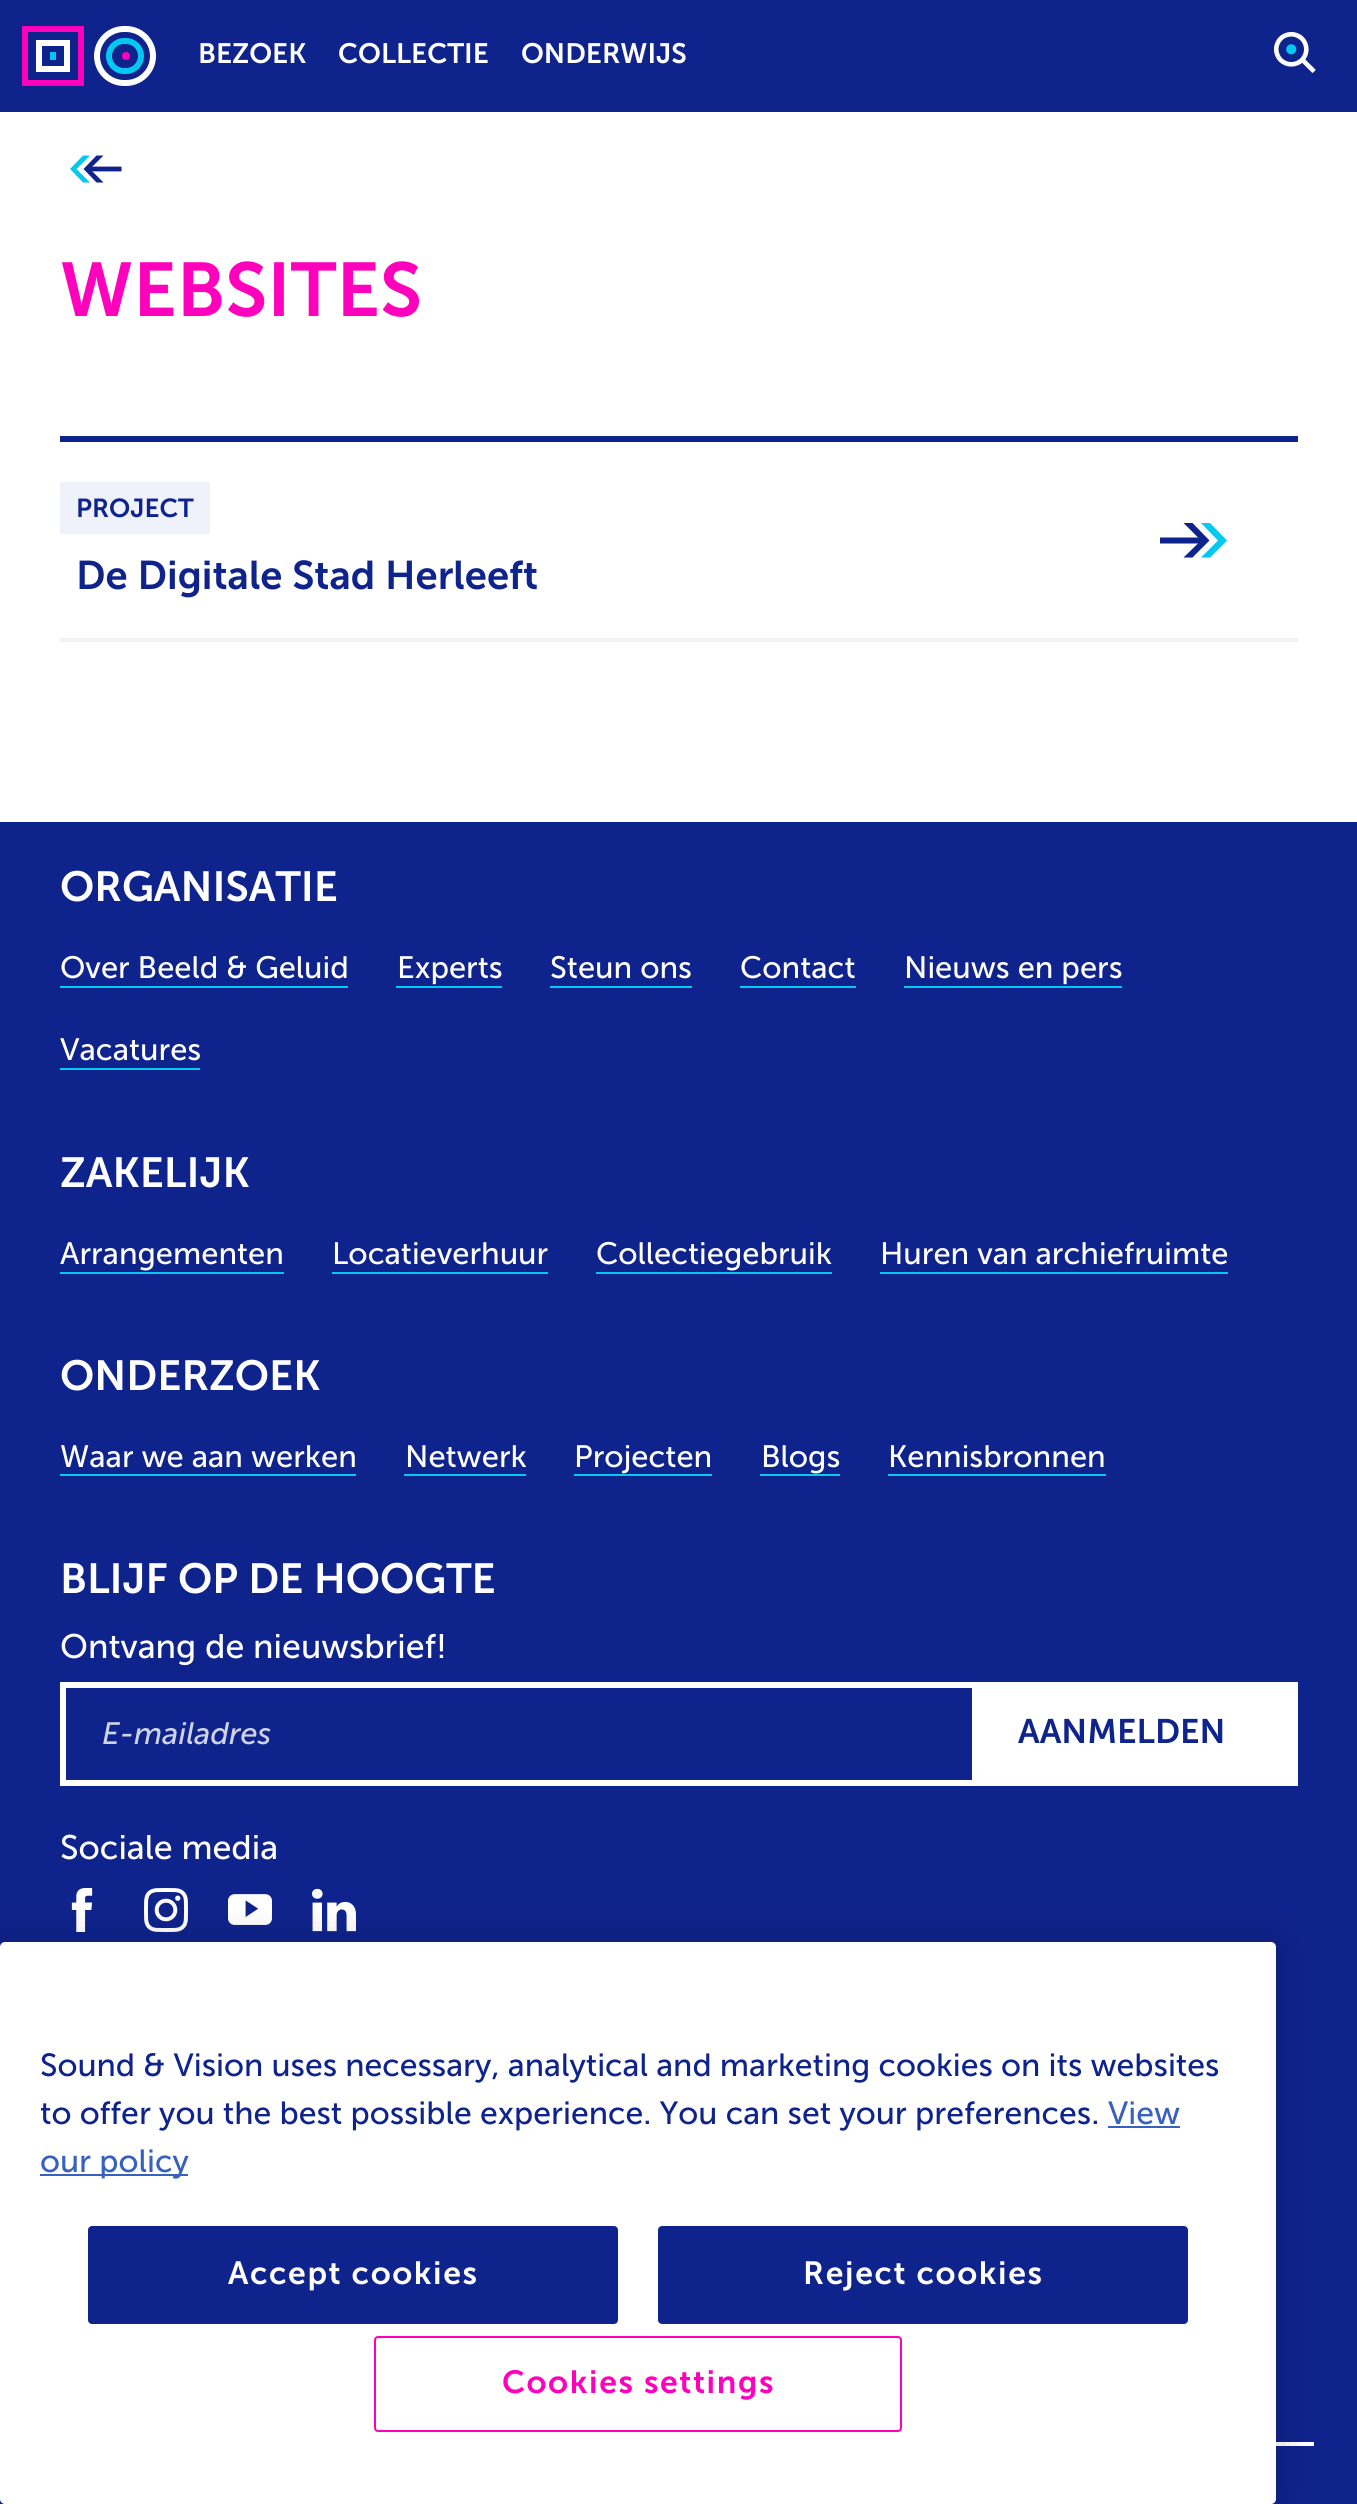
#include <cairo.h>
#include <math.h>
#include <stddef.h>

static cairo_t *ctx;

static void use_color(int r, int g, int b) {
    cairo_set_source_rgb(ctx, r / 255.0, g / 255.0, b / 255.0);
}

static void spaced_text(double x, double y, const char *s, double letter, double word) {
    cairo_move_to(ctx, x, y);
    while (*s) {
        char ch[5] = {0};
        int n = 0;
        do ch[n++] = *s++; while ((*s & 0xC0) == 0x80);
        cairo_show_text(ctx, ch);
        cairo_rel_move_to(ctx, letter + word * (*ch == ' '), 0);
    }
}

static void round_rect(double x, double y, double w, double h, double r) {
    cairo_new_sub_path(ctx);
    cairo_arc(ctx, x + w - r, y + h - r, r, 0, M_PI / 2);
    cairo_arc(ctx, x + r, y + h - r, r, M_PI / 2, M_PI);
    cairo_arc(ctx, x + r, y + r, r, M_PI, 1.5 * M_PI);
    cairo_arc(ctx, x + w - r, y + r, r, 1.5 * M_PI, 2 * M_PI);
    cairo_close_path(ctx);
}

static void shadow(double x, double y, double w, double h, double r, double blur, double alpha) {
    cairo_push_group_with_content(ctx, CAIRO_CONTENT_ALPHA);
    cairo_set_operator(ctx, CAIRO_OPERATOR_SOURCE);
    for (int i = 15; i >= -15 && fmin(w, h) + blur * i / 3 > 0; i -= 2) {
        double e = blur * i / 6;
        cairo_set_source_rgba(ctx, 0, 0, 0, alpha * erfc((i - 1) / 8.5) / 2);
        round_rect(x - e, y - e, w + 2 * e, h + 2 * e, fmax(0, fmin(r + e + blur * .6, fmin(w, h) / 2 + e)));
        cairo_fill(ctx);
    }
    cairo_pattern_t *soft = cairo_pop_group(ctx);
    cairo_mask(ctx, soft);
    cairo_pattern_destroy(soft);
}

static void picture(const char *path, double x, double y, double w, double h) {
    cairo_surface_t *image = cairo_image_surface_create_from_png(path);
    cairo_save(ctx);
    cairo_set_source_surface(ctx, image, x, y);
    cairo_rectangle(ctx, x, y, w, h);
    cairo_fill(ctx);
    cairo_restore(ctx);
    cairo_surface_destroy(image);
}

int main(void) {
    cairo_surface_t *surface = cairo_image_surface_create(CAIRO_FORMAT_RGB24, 1357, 2504);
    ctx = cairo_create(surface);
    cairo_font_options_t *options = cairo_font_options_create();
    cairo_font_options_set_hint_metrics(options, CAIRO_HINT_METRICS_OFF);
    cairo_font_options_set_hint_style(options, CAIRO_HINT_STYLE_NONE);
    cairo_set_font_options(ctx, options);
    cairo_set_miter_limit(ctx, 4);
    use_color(255, 255, 255);
    cairo_paint(ctx);
    use_color(15, 35, 140);
    cairo_rectangle(ctx, 0, 0, 1357, 112);
    cairo_fill(ctx);
    cairo_rectangle(ctx, 25, 29, 56, 54);
    use_color(255, 0, 188);
    cairo_set_line_width(ctx, 6);
    cairo_stroke(ctx);
    cairo_rectangle(ctx, 39, 43, 28, 26);
    use_color(255, 255, 255);
    cairo_stroke(ctx);
    use_color(5, 200, 240);
    cairo_rectangle(ctx, 50, 52, 6, 8);
    cairo_fill(ctx);
    round_rect(97, 29, 56, 54, 27);
    use_color(255, 255, 255);
    cairo_stroke(ctx);
    round_rect(109, 41, 32, 30, 15);
    use_color(5, 200, 240);
    cairo_stroke(ctx);
    use_color(255, 0, 188);
    cairo_arc(ctx, 126, 56, 4, 0, 2 * M_PI);
    cairo_fill(ctx);
    cairo_select_font_face(ctx, "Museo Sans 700 SemiBold", CAIRO_FONT_SLANT_NORMAL, CAIRO_FONT_WEIGHT_NORMAL);
    cairo_set_font_size(ctx, 28);
    use_color(255, 255, 255);
    cairo_move_to(ctx, 198, 63);
    cairo_show_text(ctx, "BEZOEK");
    cairo_move_to(ctx, 338, 63);
    cairo_show_text(ctx, "COLLECTIE");
    cairo_move_to(ctx, 521, 63);
    cairo_show_text(ctx, "ONDERWIJS");
    picture("img1.png", 1273, 31, 43, 42);
    use_color(5, 200, 240);
    cairo_set_fill_rule(ctx, CAIRO_FILL_RULE_EVEN_ODD);
    cairo_new_path(ctx);
    cairo_move_to(ctx, 76.5, 169);
    cairo_line_to(ctx, 90, 182.5);
    cairo_line_to(ctx, 83, 182.5);
    cairo_line_to(ctx, 70, 169);
    cairo_line_to(ctx, 83, 155.5);
    cairo_line_to(ctx, 90, 155.5);
    cairo_close_path(ctx);
    cairo_fill(ctx);
    use_color(15, 35, 140);
    cairo_new_path(ctx);
    cairo_move_to(ctx, 90, 169);
    cairo_line_to(ctx, 103.5, 182.5);
    cairo_line_to(ctx, 96.5, 182.5);
    cairo_line_to(ctx, 83.5, 169);
    cairo_line_to(ctx, 96.5, 155.5);
    cairo_line_to(ctx, 103.5, 155.5);
    cairo_close_path(ctx);
    cairo_fill(ctx);
    cairo_new_path(ctx);
    cairo_move_to(ctx, 88.5, 169);
    cairo_line_to(ctx, 121.5, 169);
    cairo_set_line_width(ctx, 4.8);
    cairo_stroke(ctx);
    cairo_set_font_size(ctx, 75.75);
    use_color(255, 0, 188);
    cairo_move_to(ctx, 60, 316);
    cairo_show_text(ctx, "WEBSITES");
    use_color(15, 35, 140);
    cairo_rectangle(ctx, 60, 436, 1238, 6);
    cairo_fill(ctx);
    use_color(240, 243, 246);
    cairo_rectangle(ctx, 60, 638, 1238, 4);
    cairo_fill(ctx);
    use_color(239, 241, 251);
    cairo_rectangle(ctx, 60, 482, 150, 52);
    cairo_fill(ctx);
    cairo_set_font_size(ctx, 26);
    use_color(15, 35, 140);
    cairo_move_to(ctx, 76, 517);
    cairo_show_text(ctx, "PROJECT");
    cairo_set_font_size(ctx, 40);
    cairo_move_to(ctx, 76, 589);
    cairo_show_text(ctx, "De Digitale Stad Herleeft");
    use_color(5, 200, 240);
    cairo_new_path(ctx);
    cairo_move_to(ctx, 1218, 540.5);
    cairo_line_to(ctx, 1201, 557.5);
    cairo_line_to(ctx, 1210, 557.5);
    cairo_line_to(ctx, 1227, 540.5);
    cairo_line_to(ctx, 1210, 523);
    cairo_line_to(ctx, 1201, 523);
    cairo_close_path(ctx);
    cairo_fill(ctx);
    use_color(15, 35, 140);
    cairo_new_path(ctx);
    cairo_move_to(ctx, 1201, 540.5);
    cairo_line_to(ctx, 1183.5, 557.5);
    cairo_line_to(ctx, 1192.5, 557.5);
    cairo_line_to(ctx, 1209.5, 540.5);
    cairo_line_to(ctx, 1192.5, 523);
    cairo_line_to(ctx, 1183.5, 523);
    cairo_close_path(ctx);
    cairo_fill(ctx);
    cairo_new_path(ctx);
    cairo_move_to(ctx, 1202.5, 540.5);
    cairo_line_to(ctx, 1160, 540.5);
    cairo_set_line_width(ctx, 6);
    cairo_stroke(ctx);
    cairo_rectangle(ctx, 0, 822, 1357, 1682);
    cairo_fill(ctx);
    cairo_set_font_size(ctx, 42);
    use_color(255, 255, 255);
    cairo_move_to(ctx, 60, 901);
    cairo_show_text(ctx, "ORGANISATIE");
    cairo_select_font_face(ctx, "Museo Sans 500", CAIRO_FONT_SLANT_NORMAL, CAIRO_FONT_WEIGHT_NORMAL);
    cairo_set_font_size(ctx, 30.9);
    cairo_move_to(ctx, 60, 978);
    cairo_show_text(ctx, "Over Beeld & Geluid");
    use_color(5, 200, 240);
    cairo_rectangle(ctx, 60, 986, 288, 2);
    cairo_fill(ctx);
    use_color(255, 255, 255);
    cairo_move_to(ctx, 397, 978);
    cairo_show_text(ctx, "Experts");
    use_color(5, 200, 240);
    cairo_rectangle(ctx, 396, 986, 106, 2);
    cairo_fill(ctx);
    use_color(255, 255, 255);
    cairo_move_to(ctx, 550, 978);
    cairo_show_text(ctx, "Steun ons");
    use_color(5, 200, 240);
    cairo_rectangle(ctx, 550, 986, 142, 2);
    cairo_fill(ctx);
    use_color(255, 255, 255);
    cairo_move_to(ctx, 740, 978);
    cairo_show_text(ctx, "Contact");
    use_color(5, 200, 240);
    cairo_rectangle(ctx, 740, 986, 116, 2);
    cairo_fill(ctx);
    use_color(255, 255, 255);
    cairo_move_to(ctx, 904, 978);
    cairo_show_text(ctx, "Nieuws en pers");
    use_color(5, 200, 240);
    cairo_rectangle(ctx, 904, 986, 218, 2);
    cairo_fill(ctx);
    use_color(255, 255, 255);
    cairo_move_to(ctx, 60, 1060);
    cairo_show_text(ctx, "Vacatures");
    use_color(5, 200, 240);
    cairo_rectangle(ctx, 60, 1068, 140, 2);
    cairo_fill(ctx);
    cairo_select_font_face(ctx, "Museo Sans 700 SemiBold", CAIRO_FONT_SLANT_NORMAL, CAIRO_FONT_WEIGHT_NORMAL);
    cairo_set_font_size(ctx, 42);
    use_color(255, 255, 255);
    cairo_move_to(ctx, 60, 1187);
    cairo_show_text(ctx, "ZAKELIJK");
    cairo_select_font_face(ctx, "Museo Sans 500", CAIRO_FONT_SLANT_NORMAL, CAIRO_FONT_WEIGHT_NORMAL);
    cairo_set_font_size(ctx, 30.9);
    cairo_move_to(ctx, 60, 1264);
    cairo_show_text(ctx, "Arrangementen");
    use_color(5, 200, 240);
    cairo_rectangle(ctx, 60, 1272, 224, 2);
    cairo_fill(ctx);
    use_color(255, 255, 255);
    cairo_move_to(ctx, 332, 1264);
    cairo_show_text(ctx, "Locatieverhuur");
    use_color(5, 200, 240);
    cairo_rectangle(ctx, 332, 1272, 216, 2);
    cairo_fill(ctx);
    use_color(255, 255, 255);
    cairo_move_to(ctx, 596, 1264);
    cairo_show_text(ctx, "Collectiegebruik");
    use_color(5, 200, 240);
    cairo_rectangle(ctx, 596, 1272, 236, 2);
    cairo_fill(ctx);
    use_color(255, 255, 255);
    cairo_move_to(ctx, 880, 1264);
    cairo_show_text(ctx, "Huren van archiefruimte");
    use_color(5, 200, 240);
    cairo_rectangle(ctx, 880, 1272, 348, 2);
    cairo_fill(ctx);
    cairo_select_font_face(ctx, "Museo Sans 700 SemiBold", CAIRO_FONT_SLANT_NORMAL, CAIRO_FONT_WEIGHT_NORMAL);
    cairo_set_font_size(ctx, 42);
    use_color(255, 255, 255);
    cairo_move_to(ctx, 60, 1390);
    cairo_show_text(ctx, "ONDERZOEK");
    cairo_select_font_face(ctx, "Museo Sans 500", CAIRO_FONT_SLANT_NORMAL, CAIRO_FONT_WEIGHT_NORMAL);
    cairo_set_font_size(ctx, 30.9);
    cairo_move_to(ctx, 60, 1467);
    cairo_show_text(ctx, "Waar we aan werken");
    use_color(5, 200, 240);
    cairo_rectangle(ctx, 60, 1474, 296, 2);
    cairo_fill(ctx);
    use_color(255, 255, 255);
    cairo_move_to(ctx, 405, 1467);
    cairo_show_text(ctx, "Netwerk");
    use_color(5, 200, 240);
    cairo_rectangle(ctx, 404, 1474, 122, 2);
    cairo_fill(ctx);
    use_color(255, 255, 255);
    cairo_move_to(ctx, 574, 1467);
    cairo_show_text(ctx, "Projecten");
    use_color(5, 200, 240);
    cairo_rectangle(ctx, 574, 1474, 138, 2);
    cairo_fill(ctx);
    use_color(255, 255, 255);
    cairo_move_to(ctx, 761, 1467);
    cairo_show_text(ctx, "Blogs");
    use_color(5, 200, 240);
    cairo_rectangle(ctx, 760, 1474, 80, 2);
    cairo_fill(ctx);
    use_color(255, 255, 255);
    cairo_move_to(ctx, 888, 1467);
    cairo_show_text(ctx, "Kennisbronnen");
    use_color(5, 200, 240);
    cairo_rectangle(ctx, 888, 1474, 218, 2);
    cairo_fill(ctx);
    cairo_select_font_face(ctx, "Museo Sans 700 SemiBold", CAIRO_FONT_SLANT_NORMAL, CAIRO_FONT_WEIGHT_NORMAL);
    cairo_set_font_size(ctx, 42);
    use_color(255, 255, 255);
    cairo_move_to(ctx, 60, 1593);
    cairo_show_text(ctx, "BLIJF OP DE HOOGTE");
    cairo_select_font_face(ctx, "Museo Sans 500", CAIRO_FONT_SLANT_NORMAL, CAIRO_FONT_WEIGHT_NORMAL);
    cairo_set_font_size(ctx, 34);
    cairo_move_to(ctx, 60, 1658);
    cairo_show_text(ctx, "Ontvang de nieuwsbrief!");
    cairo_rectangle(ctx, 63, 1685, 912, 98);
    cairo_stroke(ctx);
    cairo_select_font_face(ctx, "Museo Sans 500", CAIRO_FONT_SLANT_ITALIC, CAIRO_FONT_WEIGHT_NORMAL);
    cairo_set_font_size(ctx, 30.9);
    use_color(207, 211, 232);
    cairo_move_to(ctx, 102, 1744);
    cairo_show_text(ctx, "E-mailadres");
    use_color(255, 255, 255);
    cairo_rectangle(ctx, 978, 1682, 320, 104);
    cairo_fill(ctx);
    cairo_select_font_face(ctx, "Museo Sans 700 SemiBold", CAIRO_FONT_SLANT_NORMAL, CAIRO_FONT_WEIGHT_NORMAL);
    cairo_set_font_size(ctx, 34);
    use_color(15, 35, 140);
    cairo_move_to(ctx, 1018, 1743);
    cairo_show_text(ctx, "AANMELDEN");
    cairo_select_font_face(ctx, "Museo Sans 500", CAIRO_FONT_SLANT_NORMAL, CAIRO_FONT_WEIGHT_NORMAL);
    use_color(255, 255, 255);
    cairo_move_to(ctx, 60, 1859);
    cairo_show_text(ctx, "Sociale media");
    picture("img2.png", 71, 1888, 22, 44);
    picture("img3.png", 144, 1888, 44, 44);
    picture("img4.png", 228, 1894, 44, 31);
    picture("img5.png", 312, 1888, 44, 44);
    cairo_rectangle(ctx, 1276, 2442, 38, 4);
    cairo_fill(ctx);
    use_color(0, 0, 0);
    shadow(0, 1942, 1276, 562, 5, 18, 0.2);
    use_color(255, 255, 255);
    round_rect(0, 1942, 1276, 562, 5);
    cairo_fill(ctx);
    cairo_set_font_size(ctx, 32);
    use_color(15, 35, 140);
    cairo_move_to(ctx, 40, 2076);
    cairo_show_text(ctx, "Sound & Vision uses necessary, analytical and marketing cookies on its websites");
    cairo_move_to(ctx, 40, 2124);
    cairo_show_text(ctx, "to offer you the best possible experience. You can set your preferences.");
    use_color(56, 96, 190);
    cairo_move_to(ctx, 1108, 2124);
    cairo_show_text(ctx, "View");
    cairo_rectangle(ctx, 1108, 2126, 72, 2);
    cairo_fill(ctx);
    cairo_rectangle(ctx, 40, 2174, 148, 2);
    cairo_fill(ctx);
    cairo_move_to(ctx, 40, 2172);
    cairo_show_text(ctx, "our policy");
    use_color(15, 35, 140);
    round_rect(89, 2227, 528, 96, 3);
    cairo_fill_preserve(ctx);
    cairo_set_line_width(ctx, 2);
    cairo_stroke(ctx);
    cairo_select_font_face(ctx, "Museo Sans 700 SemiBold", CAIRO_FONT_SLANT_NORMAL, CAIRO_FONT_WEIGHT_NORMAL);
    use_color(255, 255, 255);
    spaced_text(228, 2284, "Accept cookies", 1.6, 0);
    use_color(15, 35, 140);
    round_rect(659, 2227, 528, 96, 3);
    cairo_fill_preserve(ctx);
    cairo_stroke(ctx);
    use_color(255, 255, 255);
    spaced_text(803, 2284, "Reject cookies", 1.6, 0);
    round_rect(375, 2337, 526, 94, 3);
    use_color(255, 0, 188);
    cairo_stroke(ctx);
    spaced_text(502, 2393, "Cookies settings", 1.6, 0);
    cairo_surface_write_to_png(surface, "result.png");
    cairo_font_options_destroy(options);
    cairo_destroy(ctx);
    cairo_surface_destroy(surface);
    return 0;
}
